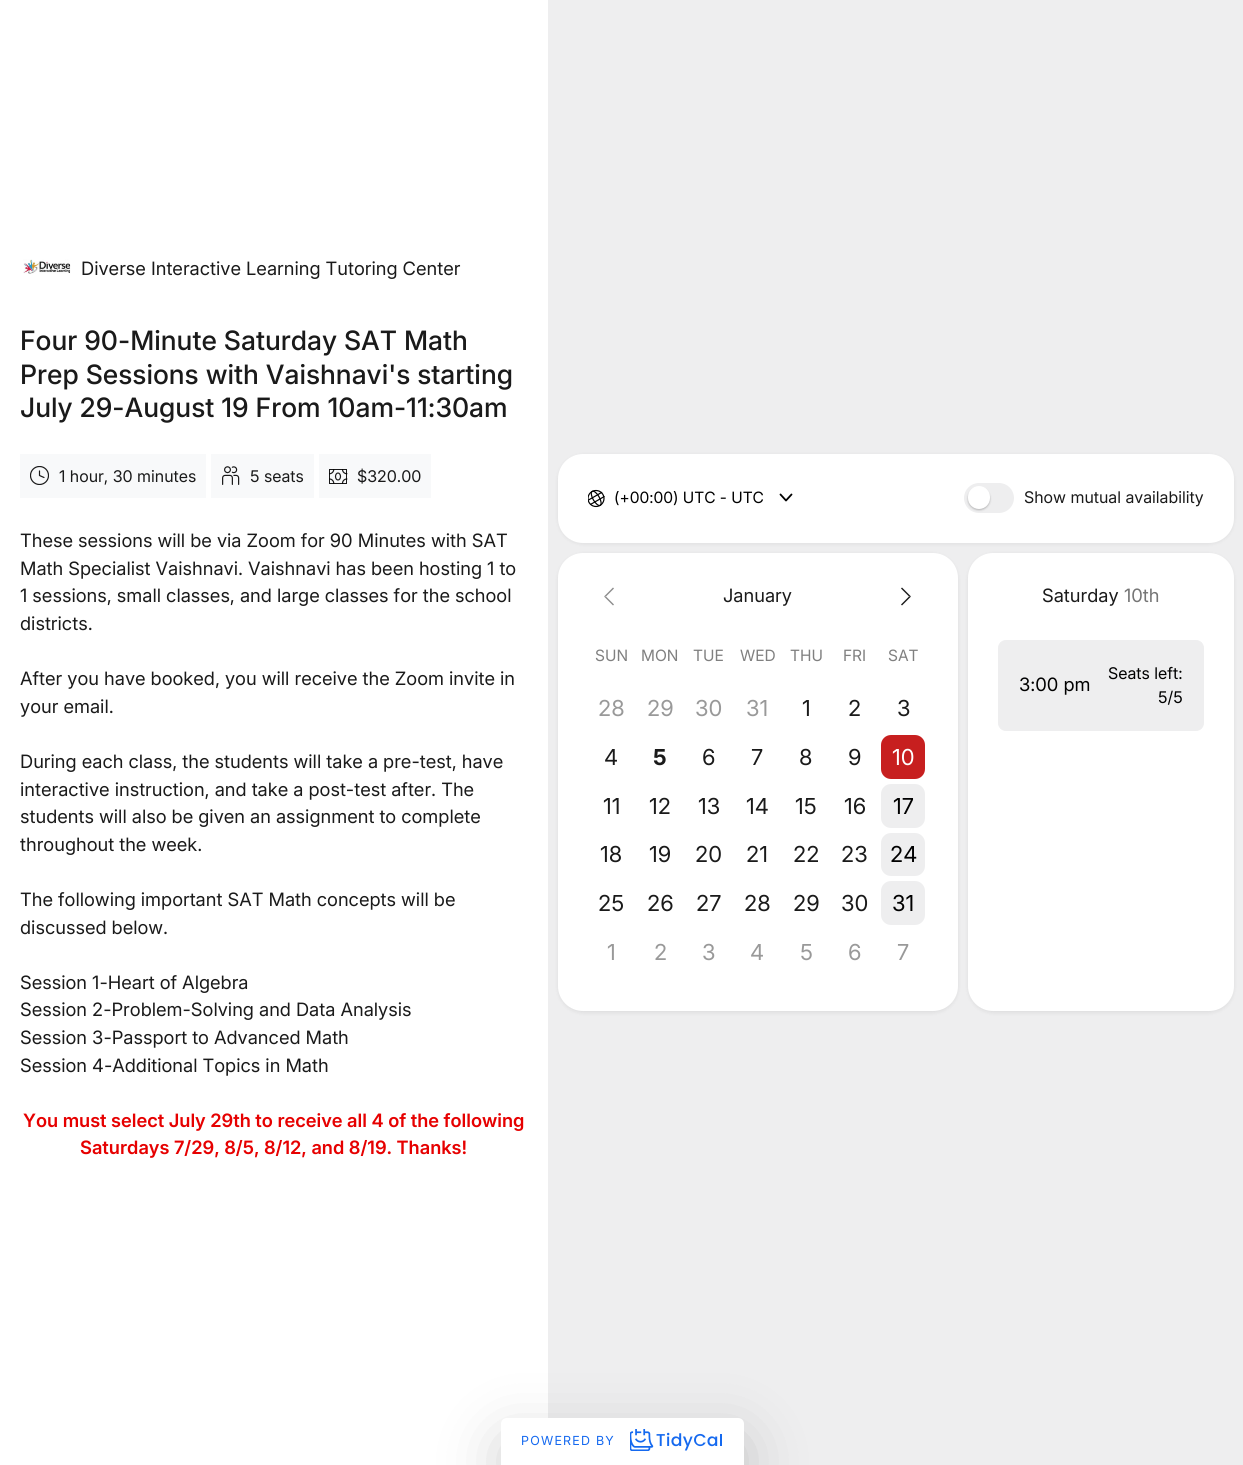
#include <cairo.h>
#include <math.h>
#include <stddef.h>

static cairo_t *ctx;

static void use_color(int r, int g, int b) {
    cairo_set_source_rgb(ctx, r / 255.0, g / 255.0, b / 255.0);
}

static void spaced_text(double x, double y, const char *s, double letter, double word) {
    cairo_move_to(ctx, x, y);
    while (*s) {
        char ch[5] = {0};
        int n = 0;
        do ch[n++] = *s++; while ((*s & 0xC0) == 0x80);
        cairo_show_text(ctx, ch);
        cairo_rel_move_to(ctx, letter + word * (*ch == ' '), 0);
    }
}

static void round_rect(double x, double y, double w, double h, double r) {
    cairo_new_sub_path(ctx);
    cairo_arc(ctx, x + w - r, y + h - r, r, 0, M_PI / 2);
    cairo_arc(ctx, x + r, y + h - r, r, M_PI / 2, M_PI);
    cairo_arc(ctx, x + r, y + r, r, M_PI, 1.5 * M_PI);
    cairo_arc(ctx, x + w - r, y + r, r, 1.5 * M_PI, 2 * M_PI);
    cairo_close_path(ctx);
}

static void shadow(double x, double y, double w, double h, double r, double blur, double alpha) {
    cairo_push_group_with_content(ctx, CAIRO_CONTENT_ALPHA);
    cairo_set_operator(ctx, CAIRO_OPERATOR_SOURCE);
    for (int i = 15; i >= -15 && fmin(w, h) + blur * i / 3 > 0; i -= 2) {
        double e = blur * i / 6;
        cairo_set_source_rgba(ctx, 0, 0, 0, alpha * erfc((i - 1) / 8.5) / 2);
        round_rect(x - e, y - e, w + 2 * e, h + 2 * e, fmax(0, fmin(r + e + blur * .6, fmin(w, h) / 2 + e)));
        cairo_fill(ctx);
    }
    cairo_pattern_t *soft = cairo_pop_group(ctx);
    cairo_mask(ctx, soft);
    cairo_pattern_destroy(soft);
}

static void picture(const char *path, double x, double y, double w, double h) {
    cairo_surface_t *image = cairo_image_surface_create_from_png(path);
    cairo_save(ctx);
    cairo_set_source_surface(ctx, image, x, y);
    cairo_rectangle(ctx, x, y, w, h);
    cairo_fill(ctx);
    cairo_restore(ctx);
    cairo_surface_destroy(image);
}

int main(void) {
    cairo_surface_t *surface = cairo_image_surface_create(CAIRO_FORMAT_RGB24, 1243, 1465);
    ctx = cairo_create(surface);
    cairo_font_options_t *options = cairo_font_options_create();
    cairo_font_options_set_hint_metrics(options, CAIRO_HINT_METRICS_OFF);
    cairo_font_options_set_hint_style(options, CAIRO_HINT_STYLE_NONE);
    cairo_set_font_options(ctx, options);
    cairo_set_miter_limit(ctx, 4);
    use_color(238, 238, 239);
    cairo_paint(ctx);
    use_color(255, 255, 255);
    cairo_rectangle(ctx, 0, 0, 548, 1465);
    cairo_fill(ctx);
    picture("img1.png", 23, 259, 48, 15);
    cairo_select_font_face(ctx, "Inter", CAIRO_FONT_SLANT_NORMAL, CAIRO_FONT_WEIGHT_NORMAL);
    cairo_set_font_size(ctx, 18.4);
    use_color(26, 26, 26);
    cairo_move_to(ctx, 81, 275);
    cairo_show_text(ctx, "Diverse Interactive Learning Tutoring Center");
    cairo_select_font_face(ctx, "Inter Medium", CAIRO_FONT_SLANT_NORMAL, CAIRO_FONT_WEIGHT_NORMAL);
    cairo_set_font_size(ctx, 26.7);
    cairo_move_to(ctx, 20, 350);
    cairo_show_text(ctx, "Four 90-Minute Saturday SAT Math");
    cairo_move_to(ctx, 20, 384);
    cairo_show_text(ctx, "Prep Sessions with Vaishnavi's starting");
    cairo_move_to(ctx, 20, 417);
    cairo_show_text(ctx, "July 29-August 19 From 10am-11:30am");
    use_color(248, 249, 250);
    cairo_rectangle(ctx, 20, 454, 186, 44);
    cairo_fill(ctx);
    cairo_save(ctx);
    cairo_rectangle(ctx, 30, 466, 19, 19);
    cairo_clip(ctx);
    cairo_arc(ctx, 39.5, 475.5, 9, 0, 2 * M_PI);
    use_color(25, 25, 25);
    cairo_set_line_width(ctx, 1.2);
    cairo_stroke(ctx);
    cairo_restore(ctx);
    cairo_new_path(ctx);
    cairo_move_to(ctx, 39.5, 471);
    cairo_line_to(ctx, 39.5, 475.5);
    cairo_line_to(ctx, 44, 477.5);
    use_color(25, 25, 25);
    cairo_set_line_width(ctx, 1.2);
    cairo_set_line_cap(ctx, CAIRO_LINE_CAP_ROUND);
    cairo_set_line_join(ctx, CAIRO_LINE_JOIN_ROUND);
    cairo_stroke(ctx);
    cairo_select_font_face(ctx, "Inter", CAIRO_FONT_SLANT_NORMAL, CAIRO_FONT_WEIGHT_NORMAL);
    cairo_set_font_size(ctx, 16.1);
    use_color(26, 26, 26);
    cairo_move_to(ctx, 59, 482);
    cairo_show_text(ctx, "1 hour, 30 minutes");
    use_color(248, 249, 250);
    cairo_rectangle(ctx, 211, 454, 103, 44);
    cairo_fill(ctx);
    picture("img2.png", 222, 466, 18, 19);
    use_color(26, 26, 26);
    cairo_move_to(ctx, 250, 482);
    cairo_show_text(ctx, "5 seats");
    use_color(248, 249, 250);
    cairo_rectangle(ctx, 319, 454, 112, 44);
    cairo_fill(ctx);
    picture("img3.png", 329, 469, 19, 15);
    use_color(26, 26, 26);
    cairo_move_to(ctx, 357, 482);
    cairo_show_text(ctx, "$320.00");
    cairo_set_font_size(ctx, 18.4);
    cairo_move_to(ctx, 20, 547);
    cairo_show_text(ctx, "These sessions will be via Zoom for 90 Minutes with SAT");
    cairo_move_to(ctx, 20, 575);
    cairo_show_text(ctx, "Math Specialist Vaishnavi. Vaishnavi has been hosting 1 to");
    cairo_move_to(ctx, 20, 602);
    cairo_show_text(ctx, "1 sessions, small classes, and large classes for the school");
    cairo_move_to(ctx, 20, 630);
    cairo_show_text(ctx, "districts.");
    cairo_move_to(ctx, 20, 685);
    cairo_show_text(ctx, "After you have booked, you will receive the Zoom invite in");
    cairo_move_to(ctx, 20, 713);
    cairo_show_text(ctx, "your email.");
    cairo_move_to(ctx, 20, 768);
    cairo_show_text(ctx, "During each class, the students will take a pre-test, have");
    cairo_move_to(ctx, 20, 796);
    cairo_show_text(ctx, "interactive instruction, and take a post-test after. The");
    cairo_move_to(ctx, 20, 823);
    cairo_show_text(ctx, "students will also be given an assignment to complete");
    cairo_move_to(ctx, 20, 851);
    cairo_show_text(ctx, "throughout the week.");
    cairo_move_to(ctx, 20, 906);
    cairo_show_text(ctx, "The following important SAT Math concepts will be");
    cairo_move_to(ctx, 20, 934);
    cairo_show_text(ctx, "discussed below.");
    cairo_move_to(ctx, 20, 989);
    cairo_show_text(ctx, "Session 1-Heart of Algebra");
    cairo_move_to(ctx, 20, 1016);
    cairo_show_text(ctx, "Session 2-Problem-Solving and Data Analysis");
    cairo_move_to(ctx, 20, 1044);
    cairo_show_text(ctx, "Session 3-Passport to Advanced Math");
    cairo_move_to(ctx, 20, 1072);
    cairo_show_text(ctx, "Session 4-Additional Topics in Math");
    cairo_select_font_face(ctx, "Inter SemiBold", CAIRO_FONT_SLANT_NORMAL, CAIRO_FONT_WEIGHT_NORMAL);
    use_color(230, 0, 0);
    cairo_move_to(ctx, 23, 1127);
    cairo_show_text(ctx, "You must select July 29th to receive all 4 of the following");
    cairo_move_to(ctx, 80, 1154);
    cairo_show_text(ctx, "Saturdays 7/29, 8/5, 8/12, and 8/19. Thanks!");
    use_color(0, 0, 0);
    shadow(558, 455, 676, 89, 25, 2, 0.07);
    use_color(255, 255, 255);
    round_rect(558, 454, 676, 89, 25);
    cairo_fill(ctx);
    picture("img4.png", 588, 489, 17, 19);
    cairo_select_font_face(ctx, "Inter", CAIRO_FONT_SLANT_NORMAL, CAIRO_FONT_WEIGHT_NORMAL);
    cairo_set_font_size(ctx, 15.6);
    use_color(0, 0, 0);
    cairo_move_to(ctx, 614, 503);
    cairo_show_text(ctx, "(+00:00) UTC - UTC");
    cairo_new_path(ctx);
    cairo_move_to(ctx, 780.5, 494.5);
    cairo_line_to(ctx, 786, 500.5);
    cairo_line_to(ctx, 791.5, 494.5);
    cairo_set_line_width(ctx, 1.8);
    cairo_stroke(ctx);
    use_color(238, 238, 239);
    round_rect(964, 483, 50, 30, 15);
    cairo_fill(ctx);
    use_color(0, 0, 0);
    shadow(968, 488, 22, 22, 11, 1, 0.25);
    use_color(255, 255, 255);
    round_rect(968, 486, 22, 23, 11);
    cairo_fill(ctx);
    cairo_set_font_size(ctx, 16.1);
    use_color(26, 26, 26);
    cairo_move_to(ctx, 1024, 503);
    cairo_show_text(ctx, "Show mutual availability");
    use_color(0, 0, 0);
    shadow(558, 554, 400, 459, 25, 2, 0.07);
    use_color(255, 255, 255);
    round_rect(558, 553, 400, 458, 25);
    cairo_fill(ctx);
    use_color(141, 141, 141);
    cairo_new_path(ctx);
    cairo_move_to(ctx, 613, 605.5);
    cairo_line_to(ctx, 604, 596.5);
    cairo_line_to(ctx, 606, 596.5);
    cairo_line_to(ctx, 614, 604.5);
    cairo_close_path(ctx);
    cairo_fill(ctx);
    cairo_set_source_rgba(ctx, 0.502, 0.502, 0.502, 0.9);
    cairo_new_path(ctx);
    cairo_move_to(ctx, 604, 596.5);
    cairo_line_to(ctx, 613, 587.5);
    cairo_line_to(ctx, 614, 588.5);
    cairo_line_to(ctx, 606, 596.5);
    cairo_close_path(ctx);
    cairo_fill(ctx);
    cairo_set_font_size(ctx, 18.4);
    use_color(26, 26, 26);
    cairo_move_to(ctx, 723, 602);
    cairo_show_text(ctx, "January");
    cairo_new_path(ctx);
    cairo_move_to(ctx, 902, 587.5);
    cairo_line_to(ctx, 911, 596.5);
    cairo_line_to(ctx, 909, 596.5);
    cairo_line_to(ctx, 901, 588.5);
    cairo_close_path(ctx);
    cairo_fill(ctx);
    cairo_set_source_rgba(ctx, 0, 0, 0, 0.9);
    cairo_new_path(ctx);
    cairo_move_to(ctx, 911, 596.5);
    cairo_line_to(ctx, 902, 605.5);
    cairo_line_to(ctx, 901, 604.5);
    cairo_line_to(ctx, 909, 596.5);
    cairo_close_path(ctx);
    cairo_fill(ctx);
    cairo_set_font_size(ctx, 15.6);
    use_color(128, 128, 128);
    cairo_move_to(ctx, 595, 661);
    cairo_show_text(ctx, "SUN");
    cairo_move_to(ctx, 641, 661);
    cairo_show_text(ctx, "MON");
    cairo_move_to(ctx, 693, 661);
    cairo_show_text(ctx, "TUE");
    cairo_move_to(ctx, 740, 661);
    cairo_show_text(ctx, "WED");
    cairo_move_to(ctx, 790, 661);
    cairo_show_text(ctx, "THU");
    cairo_move_to(ctx, 843, 661);
    cairo_show_text(ctx, "FRI");
    cairo_move_to(ctx, 888, 661);
    cairo_show_text(ctx, "SAT");
    cairo_set_font_size(ctx, 22);
    use_color(153, 153, 153);
    cairo_move_to(ctx, 598, 716);
    cairo_show_text(ctx, "28");
    cairo_move_to(ctx, 647, 716);
    cairo_show_text(ctx, "29");
    cairo_move_to(ctx, 695, 716);
    cairo_show_text(ctx, "30");
    cairo_move_to(ctx, 746, 716);
    cairo_show_text(ctx, "31");
    use_color(26, 26, 26);
    cairo_move_to(ctx, 802, 716);
    cairo_show_text(ctx, "1");
    cairo_move_to(ctx, 848, 716);
    cairo_show_text(ctx, "2");
    cairo_move_to(ctx, 897, 716);
    cairo_show_text(ctx, "3");
    cairo_move_to(ctx, 604, 765);
    cairo_show_text(ctx, "4");
    cairo_select_font_face(ctx, "Inter", CAIRO_FONT_SLANT_NORMAL, CAIRO_FONT_WEIGHT_BOLD);
    cairo_move_to(ctx, 653, 765);
    cairo_show_text(ctx, "5");
    cairo_select_font_face(ctx, "Inter", CAIRO_FONT_SLANT_NORMAL, CAIRO_FONT_WEIGHT_NORMAL);
    cairo_move_to(ctx, 702, 765);
    cairo_show_text(ctx, "6");
    cairo_move_to(ctx, 751, 765);
    cairo_show_text(ctx, "7");
    cairo_move_to(ctx, 799, 765);
    cairo_show_text(ctx, "8");
    cairo_move_to(ctx, 848, 765);
    cairo_show_text(ctx, "9");
    use_color(199, 31, 31);
    round_rect(881, 735, 44, 44, 10);
    cairo_fill(ctx);
    use_color(255, 255, 255);
    cairo_move_to(ctx, 892, 765);
    cairo_show_text(ctx, "10");
    use_color(26, 26, 26);
    cairo_move_to(ctx, 603, 814);
    cairo_show_text(ctx, "11");
    cairo_move_to(ctx, 649, 814);
    cairo_show_text(ctx, "12");
    cairo_move_to(ctx, 698, 814);
    cairo_show_text(ctx, "13");
    cairo_move_to(ctx, 746, 814);
    cairo_show_text(ctx, "14");
    cairo_move_to(ctx, 795, 814);
    cairo_show_text(ctx, "15");
    cairo_move_to(ctx, 844, 814);
    cairo_show_text(ctx, "16");
    use_color(238, 238, 239);
    round_rect(881, 784, 44, 44, 10);
    cairo_fill(ctx);
    use_color(0, 0, 0);
    cairo_move_to(ctx, 893, 814);
    cairo_show_text(ctx, "17");
    use_color(26, 26, 26);
    cairo_move_to(ctx, 600, 862);
    cairo_show_text(ctx, "18");
    cairo_move_to(ctx, 649, 862);
    cairo_show_text(ctx, "19");
    cairo_move_to(ctx, 695, 862);
    cairo_show_text(ctx, "20");
    cairo_move_to(ctx, 746, 862);
    cairo_show_text(ctx, "21");
    cairo_move_to(ctx, 793, 862);
    cairo_show_text(ctx, "22");
    cairo_move_to(ctx, 841, 862);
    cairo_show_text(ctx, "23");
    use_color(238, 238, 239);
    round_rect(881, 833, 44, 43, 10);
    cairo_fill(ctx);
    use_color(0, 0, 0);
    cairo_move_to(ctx, 890, 862);
    cairo_show_text(ctx, "24");
    use_color(26, 26, 26);
    cairo_move_to(ctx, 598, 911);
    cairo_show_text(ctx, "25");
    cairo_move_to(ctx, 647, 911);
    cairo_show_text(ctx, "26");
    cairo_move_to(ctx, 696, 911);
    cairo_show_text(ctx, "27");
    cairo_move_to(ctx, 744, 911);
    cairo_show_text(ctx, "28");
    cairo_move_to(ctx, 793, 911);
    cairo_show_text(ctx, "29");
    cairo_move_to(ctx, 841, 911);
    cairo_show_text(ctx, "30");
    use_color(238, 238, 239);
    round_rect(881, 881, 44, 44, 10);
    cairo_fill(ctx);
    use_color(0, 0, 0);
    cairo_move_to(ctx, 892, 911);
    cairo_show_text(ctx, "31");
    use_color(153, 153, 153);
    cairo_move_to(ctx, 607, 960);
    cairo_show_text(ctx, "1");
    cairo_move_to(ctx, 654, 960);
    cairo_show_text(ctx, "2");
    cairo_move_to(ctx, 702, 960);
    cairo_show_text(ctx, "3");
    cairo_move_to(ctx, 750, 960);
    cairo_show_text(ctx, "4");
    cairo_move_to(ctx, 800, 960);
    cairo_show_text(ctx, "5");
    cairo_move_to(ctx, 848, 960);
    cairo_show_text(ctx, "6");
    cairo_move_to(ctx, 897, 960);
    cairo_show_text(ctx, "7");
    use_color(0, 0, 0);
    shadow(968, 554, 266, 459, 25, 2, 0.07);
    use_color(255, 255, 255);
    round_rect(968, 553, 266, 458, 25);
    cairo_fill(ctx);
    cairo_set_font_size(ctx, 18.4);
    use_color(26, 26, 26);
    cairo_move_to(ctx, 1042, 602);
    cairo_show_text(ctx, "Saturday");
    use_color(117, 117, 117);
    cairo_move_to(ctx, 1124, 602);
    cairo_show_text(ctx, "10th");
    use_color(238, 238, 239);
    round_rect(998.5, 640.5, 205, 90, 7.5);
    cairo_fill_preserve(ctx);
    cairo_set_line_width(ctx, 1);
    cairo_set_line_cap(ctx, CAIRO_LINE_CAP_BUTT);
    cairo_set_line_join(ctx, CAIRO_LINE_JOIN_MITER);
    cairo_stroke(ctx);
    use_color(0, 0, 0);
    cairo_move_to(ctx, 1019, 691);
    cairo_show_text(ctx, "3:00 pm");
    cairo_set_font_size(ctx, 16.1);
    cairo_move_to(ctx, 1108, 679);
    cairo_show_text(ctx, "Seats left:");
    cairo_move_to(ctx, 1158, 703);
    cairo_show_text(ctx, "5/5");
    use_color(0, 0, 0);
    shadow(501, 1438, 243, 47, 6, 30, 0.18);
    use_color(255, 255, 255);
    cairo_new_path(ctx);
    cairo_move_to(ctx, 507, 1418);
    cairo_line_to(ctx, 738, 1418);
    cairo_curve_to(ctx, 741.5, 1418, 744, 1420.5, 744, 1424);
    cairo_line_to(ctx, 744, 1465);
    cairo_line_to(ctx, 501, 1465);
    cairo_line_to(ctx, 501, 1424);
    cairo_curve_to(ctx, 501, 1420.5, 503.5, 1418, 507, 1418);
    cairo_close_path(ctx);
    cairo_fill(ctx);
    cairo_set_font_size(ctx, 12.5);
    use_color(21, 105, 239);
    spaced_text(521, 1445, "POWERED BY", 1.25, 0);
    picture("img5.png", 630, 1429, 92, 22);
    cairo_surface_write_to_png(surface, "result.png");
    cairo_font_options_destroy(options);
    cairo_destroy(ctx);
    cairo_surface_destroy(surface);
    return 0;
}
